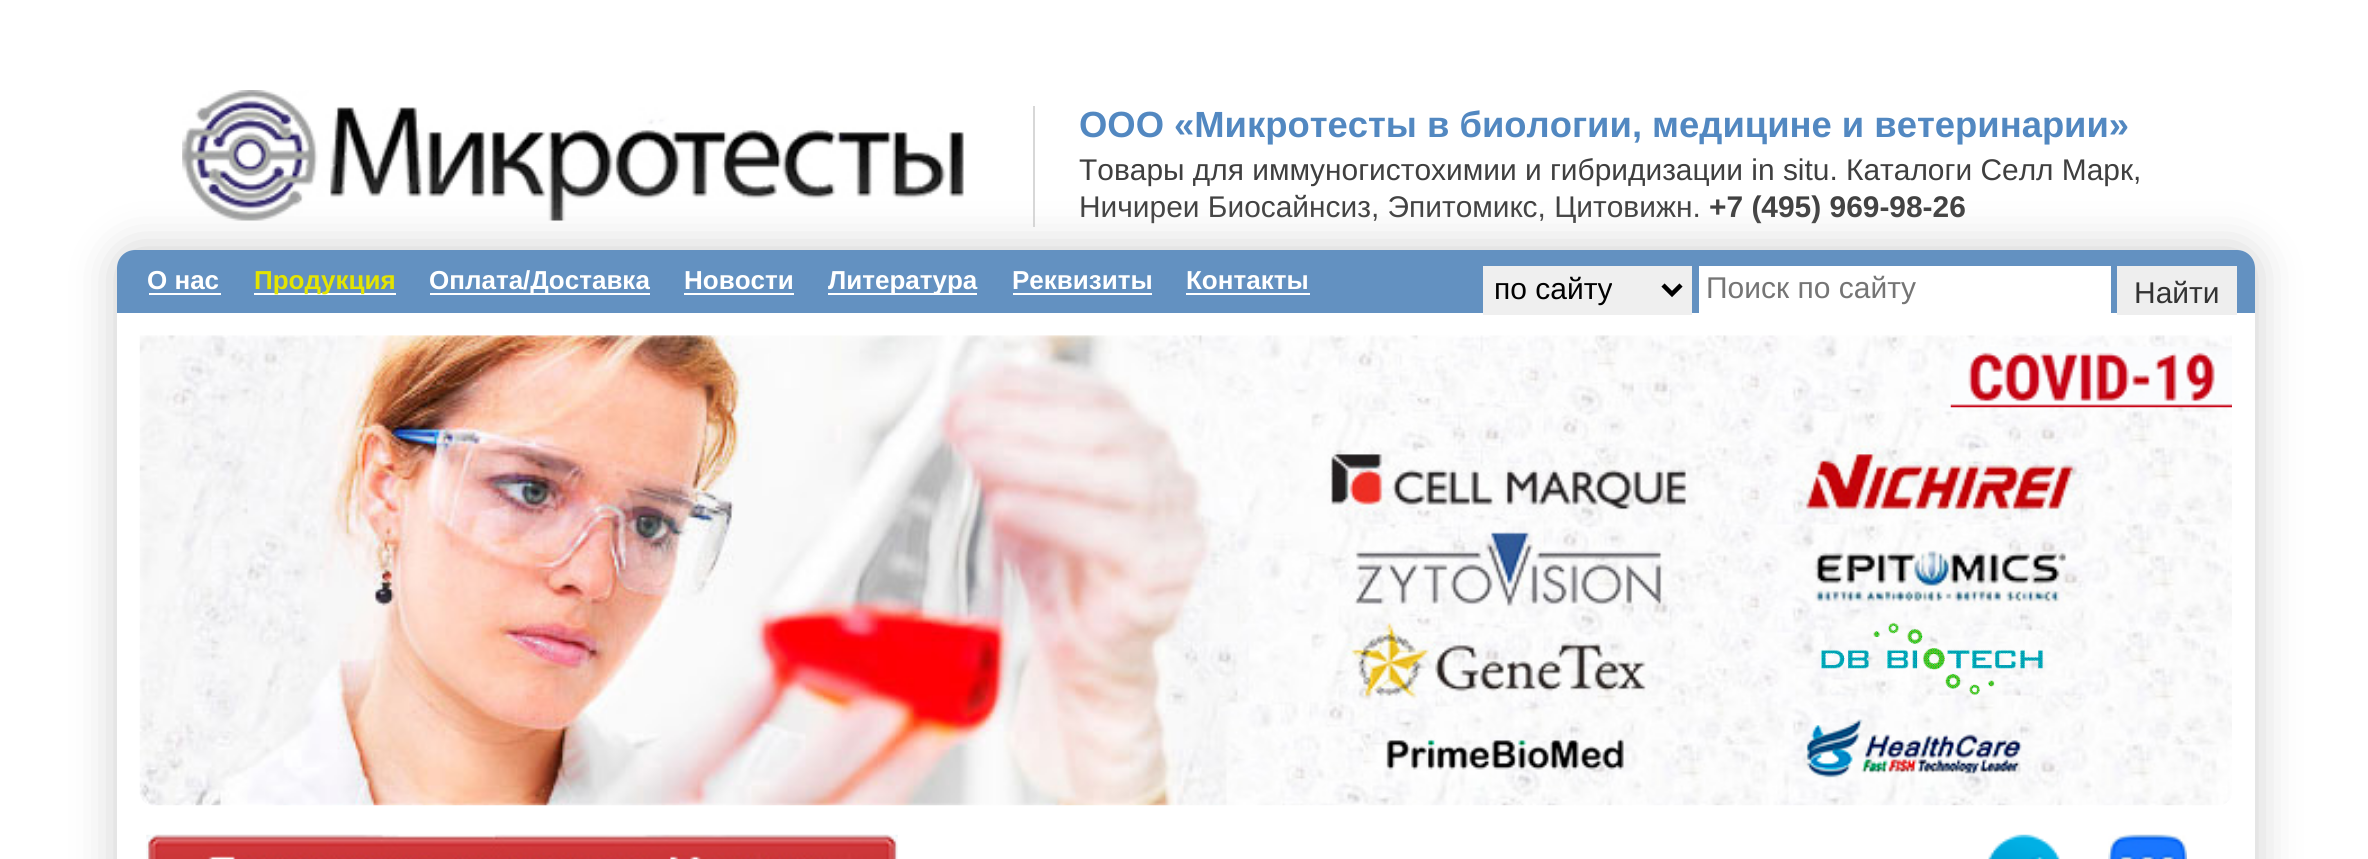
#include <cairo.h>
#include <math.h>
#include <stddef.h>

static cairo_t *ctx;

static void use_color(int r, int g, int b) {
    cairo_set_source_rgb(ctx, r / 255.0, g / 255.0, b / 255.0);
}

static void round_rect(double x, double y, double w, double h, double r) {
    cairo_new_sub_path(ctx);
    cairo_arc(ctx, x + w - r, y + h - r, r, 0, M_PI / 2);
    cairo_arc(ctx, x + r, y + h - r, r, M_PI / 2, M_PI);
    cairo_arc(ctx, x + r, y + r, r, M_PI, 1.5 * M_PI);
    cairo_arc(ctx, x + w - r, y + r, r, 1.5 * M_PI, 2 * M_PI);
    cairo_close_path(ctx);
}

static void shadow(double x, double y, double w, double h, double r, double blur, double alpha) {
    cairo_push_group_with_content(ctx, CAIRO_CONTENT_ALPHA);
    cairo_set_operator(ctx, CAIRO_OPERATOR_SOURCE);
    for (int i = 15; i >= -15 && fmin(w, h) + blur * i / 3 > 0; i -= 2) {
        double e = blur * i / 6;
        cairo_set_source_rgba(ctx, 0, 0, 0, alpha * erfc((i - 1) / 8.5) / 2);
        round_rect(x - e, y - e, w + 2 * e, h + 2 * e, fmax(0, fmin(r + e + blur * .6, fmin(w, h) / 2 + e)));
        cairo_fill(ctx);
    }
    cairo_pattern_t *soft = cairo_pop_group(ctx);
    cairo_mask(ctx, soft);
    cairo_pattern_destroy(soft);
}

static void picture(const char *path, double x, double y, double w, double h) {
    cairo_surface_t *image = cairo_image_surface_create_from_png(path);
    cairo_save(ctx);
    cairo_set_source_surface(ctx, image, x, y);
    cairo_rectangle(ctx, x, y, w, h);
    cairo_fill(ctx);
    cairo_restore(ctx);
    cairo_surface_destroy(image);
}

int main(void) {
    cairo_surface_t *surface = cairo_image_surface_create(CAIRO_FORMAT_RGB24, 2368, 859);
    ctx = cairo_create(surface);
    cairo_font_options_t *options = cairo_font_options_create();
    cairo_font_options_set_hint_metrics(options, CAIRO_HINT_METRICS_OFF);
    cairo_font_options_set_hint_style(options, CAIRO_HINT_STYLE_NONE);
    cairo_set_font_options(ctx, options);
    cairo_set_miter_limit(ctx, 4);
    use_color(255, 255, 255);
    cairo_paint(ctx);
    picture("img1.png", 182, 90, 782, 131);
    use_color(215, 215, 215);
    cairo_rectangle(ctx, 1033, 106, 2, 121);
    cairo_fill(ctx);
    cairo_select_font_face(ctx, "Liberation Sans", CAIRO_FONT_SLANT_NORMAL, CAIRO_FONT_WEIGHT_BOLD);
    cairo_set_font_size(ctx, 36.4);
    use_color(82, 136, 193);
    cairo_move_to(ctx, 1079, 137);
    cairo_show_text(ctx, "ООО «Микротесты в биологии, медицине и ветеринарии»");
    cairo_select_font_face(ctx, "Liberation Sans", CAIRO_FONT_SLANT_NORMAL, CAIRO_FONT_WEIGHT_NORMAL);
    cairo_set_font_size(ctx, 29.9);
    use_color(63, 63, 63);
    cairo_move_to(ctx, 1079, 180);
    cairo_show_text(ctx, "Товары для иммуногистохимии и гибридизации in situ. Каталоги Селл Марк,");
    cairo_move_to(ctx, 1079, 217);
    cairo_show_text(ctx, "Ничиреи Биосайнсиз, Эпитомикс, Цитовижн.");
    cairo_select_font_face(ctx, "Liberation Sans", CAIRO_FONT_SLANT_NORMAL, CAIRO_FONT_WEIGHT_BOLD);
    cairo_move_to(ctx, 1709, 217);
    cairo_show_text(ctx, "+7 (495) 969-98-26");
    use_color(204, 204, 204);
    shadow(117, 250, 2138, 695, 18, 22.5, 1);
    use_color(255, 255, 255);
    round_rect(117, 250, 2138, 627, 18);
    cairo_fill(ctx);
    use_color(99, 145, 193);
    cairo_new_path(ctx);
    cairo_move_to(ctx, 135, 250);
    cairo_line_to(ctx, 2237, 250);
    cairo_curve_to(ctx, 2247, 250, 2255, 258, 2255, 268);
    cairo_line_to(ctx, 2255, 313);
    cairo_line_to(ctx, 117, 313);
    cairo_line_to(ctx, 117, 268);
    cairo_curve_to(ctx, 117, 258, 125, 250, 135, 250);
    cairo_close_path(ctx);
    cairo_fill(ctx);
    cairo_set_font_size(ctx, 26);
    use_color(255, 255, 255);
    cairo_move_to(ctx, 147, 289);
    cairo_show_text(ctx, "О нас");
    cairo_rectangle(ctx, 149, 293, 72, 2);
    cairo_fill(ctx);
    cairo_rectangle(ctx, 254, 293, 142, 2);
    cairo_fill(ctx);
    use_color(228, 228, 1);
    cairo_move_to(ctx, 254, 289);
    cairo_show_text(ctx, "Продукция");
    use_color(255, 255, 255);
    cairo_rectangle(ctx, 430, 293, 220, 2);
    cairo_fill(ctx);
    cairo_move_to(ctx, 429, 289);
    cairo_show_text(ctx, "Оплата/Доставка");
    cairo_move_to(ctx, 684, 289);
    cairo_show_text(ctx, "Новости");
    cairo_rectangle(ctx, 684, 293, 110, 2);
    cairo_fill(ctx);
    cairo_rectangle(ctx, 828, 293, 149, 2);
    cairo_fill(ctx);
    cairo_move_to(ctx, 828, 289);
    cairo_show_text(ctx, "Литература");
    cairo_move_to(ctx, 1012, 289);
    cairo_show_text(ctx, "Реквизиты");
    cairo_rectangle(ctx, 1013, 293, 139, 2);
    cairo_fill(ctx);
    cairo_move_to(ctx, 1186, 289);
    cairo_show_text(ctx, "Контакты");
    cairo_rectangle(ctx, 1186, 293, 124, 2);
    cairo_fill(ctx);
    use_color(239, 239, 239);
    cairo_rectangle(ctx, 1483, 266, 209, 49);
    cairo_fill(ctx);
    cairo_new_path(ctx);
    cairo_move_to(ctx, 1663, 285);
    cairo_line_to(ctx, 1672, 294);
    cairo_line_to(ctx, 1681, 285);
    use_color(0, 0, 0);
    cairo_set_line_width(ctx, 4.5);
    cairo_stroke(ctx);
    cairo_select_font_face(ctx, "Liberation Sans", CAIRO_FONT_SLANT_NORMAL, CAIRO_FONT_WEIGHT_NORMAL);
    cairo_set_font_size(ctx, 30);
    cairo_move_to(ctx, 1494, 299);
    cairo_show_text(ctx, "по сайту");
    use_color(255, 255, 255);
    cairo_rectangle(ctx, 1699, 266, 412, 47);
    cairo_fill(ctx);
    use_color(117, 117, 117);
    cairo_move_to(ctx, 1706, 298);
    cairo_show_text(ctx, "Поиск по сайту");
    use_color(238, 238, 238);
    cairo_rectangle(ctx, 2117, 266, 120, 49);
    cairo_fill(ctx);
    use_color(51, 51, 51);
    cairo_move_to(ctx, 2134, 303);
    cairo_show_text(ctx, "Найти");
    picture("img2.png", 139, 335, 2093, 471);
    picture("img3.png", 1950, 346, 282, 62);
    picture("img4.png", 1821, 622, 223, 74);
    picture("img5.png", 1386, 738, 238, 33);
    picture("img6.png", 1805, 719, 217, 59);
    picture("img7.png", 146, 834, 752, 25);
    picture("img8.png", 1988, 834, 72, 25);
    picture("img9.png", 2108, 834, 79, 25);
    cairo_surface_write_to_png(surface, "result.png");
    cairo_font_options_destroy(options);
    cairo_destroy(ctx);
    cairo_surface_destroy(surface);
    return 0;
}
